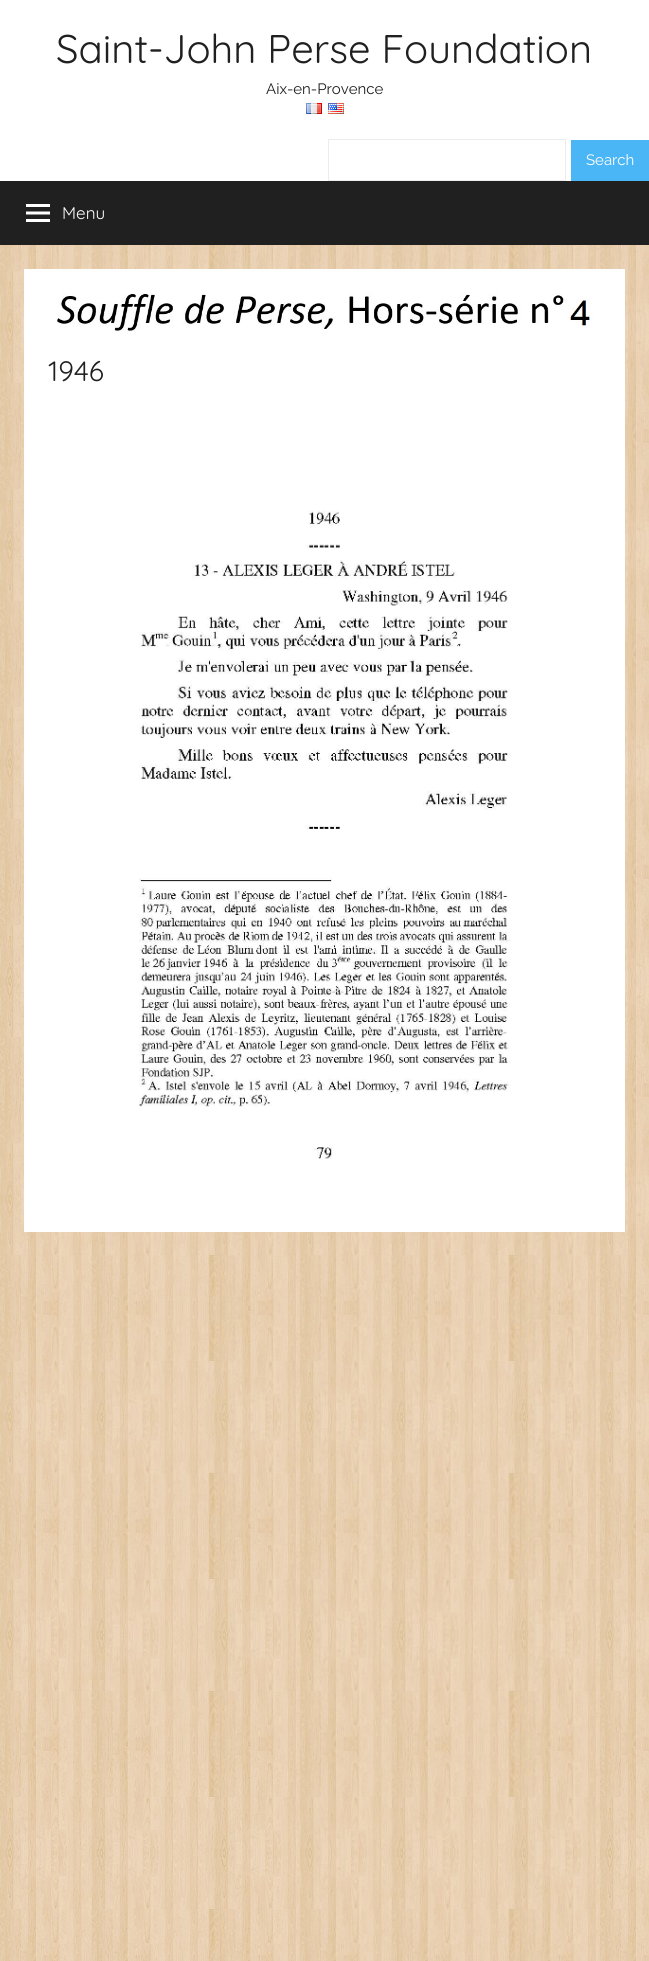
#include <cairo.h>
#include <math.h>
#include <stddef.h>

static cairo_t *ctx;

static void use_color(int r, int g, int b) {
    cairo_set_source_rgb(ctx, r / 255.0, g / 255.0, b / 255.0);
}

static void picture(const char *path, double x, double y, double w, double h) {
    cairo_surface_t *image = cairo_image_surface_create_from_png(path);
    cairo_save(ctx);
    cairo_set_source_surface(ctx, image, x, y);
    cairo_rectangle(ctx, x, y, w, h);
    cairo_fill(ctx);
    cairo_restore(ctx);
    cairo_surface_destroy(image);
}

int main(void) {
    cairo_surface_t *surface = cairo_image_surface_create(CAIRO_FORMAT_RGB24, 649, 1961);
    ctx = cairo_create(surface);
    cairo_font_options_t *options = cairo_font_options_create();
    cairo_font_options_set_hint_metrics(options, CAIRO_HINT_METRICS_OFF);
    cairo_font_options_set_hint_style(options, CAIRO_HINT_STYLE_NONE);
    cairo_set_font_options(ctx, options);
    cairo_set_miter_limit(ctx, 4);
    use_color(255, 255, 255);
    cairo_paint(ctx);
    picture("img1.png", 0, 245, 649, 1716);
    cairo_select_font_face(ctx, "Quicksand", CAIRO_FONT_SLANT_NORMAL, CAIRO_FONT_WEIGHT_NORMAL);
    cairo_set_font_size(ctx, 40);
    use_color(32, 32, 32);
    cairo_move_to(ctx, 56, 63);
    cairo_show_text(ctx, "Saint-John Perse Foundation");
    cairo_select_font_face(ctx, "Raleway", CAIRO_FONT_SLANT_NORMAL, CAIRO_FONT_WEIGHT_NORMAL);
    cairo_set_font_size(ctx, 15);
    cairo_move_to(ctx, 266, 94);
    cairo_show_text(ctx, "Aix-en-Provence");
    picture("img2.png", 306, 103, 16, 11);
    picture("img3.png", 328, 103, 16, 11);
    cairo_rectangle(ctx, 328.5, 139.5, 237, 41);
    use_color(236, 236, 236);
    cairo_set_line_width(ctx, 1);
    cairo_stroke(ctx);
    use_color(75, 182, 245);
    cairo_rectangle(ctx, 571, 140, 78, 41);
    cairo_fill(ctx);
    use_color(255, 255, 255);
    cairo_move_to(ctx, 586, 165);
    cairo_show_text(ctx, "Search");
    use_color(32, 32, 32);
    cairo_rectangle(ctx, 0, 181, 649, 64);
    cairo_fill(ctx);
    picture("img4.png", 26, 204, 24, 18);
    cairo_select_font_face(ctx, "Quicksand", CAIRO_FONT_SLANT_NORMAL, CAIRO_FONT_WEIGHT_NORMAL);
    cairo_set_font_size(ctx, 17);
    use_color(255, 255, 255);
    cairo_move_to(ctx, 62, 219);
    cairo_show_text(ctx, "Menu");
    cairo_rectangle(ctx, 24, 269, 601, 963);
    cairo_fill(ctx);
    picture("img5.png", 57, 293, 538, 39);
    cairo_set_font_size(ctx, 28);
    use_color(32, 32, 32);
    cairo_move_to(ctx, 48, 381);
    cairo_show_text(ctx, "1946");
    picture("img6.png", 139, 510, 372, 649);
    cairo_surface_write_to_png(surface, "result.png");
    cairo_font_options_destroy(options);
    cairo_destroy(ctx);
    cairo_surface_destroy(surface);
    return 0;
}
